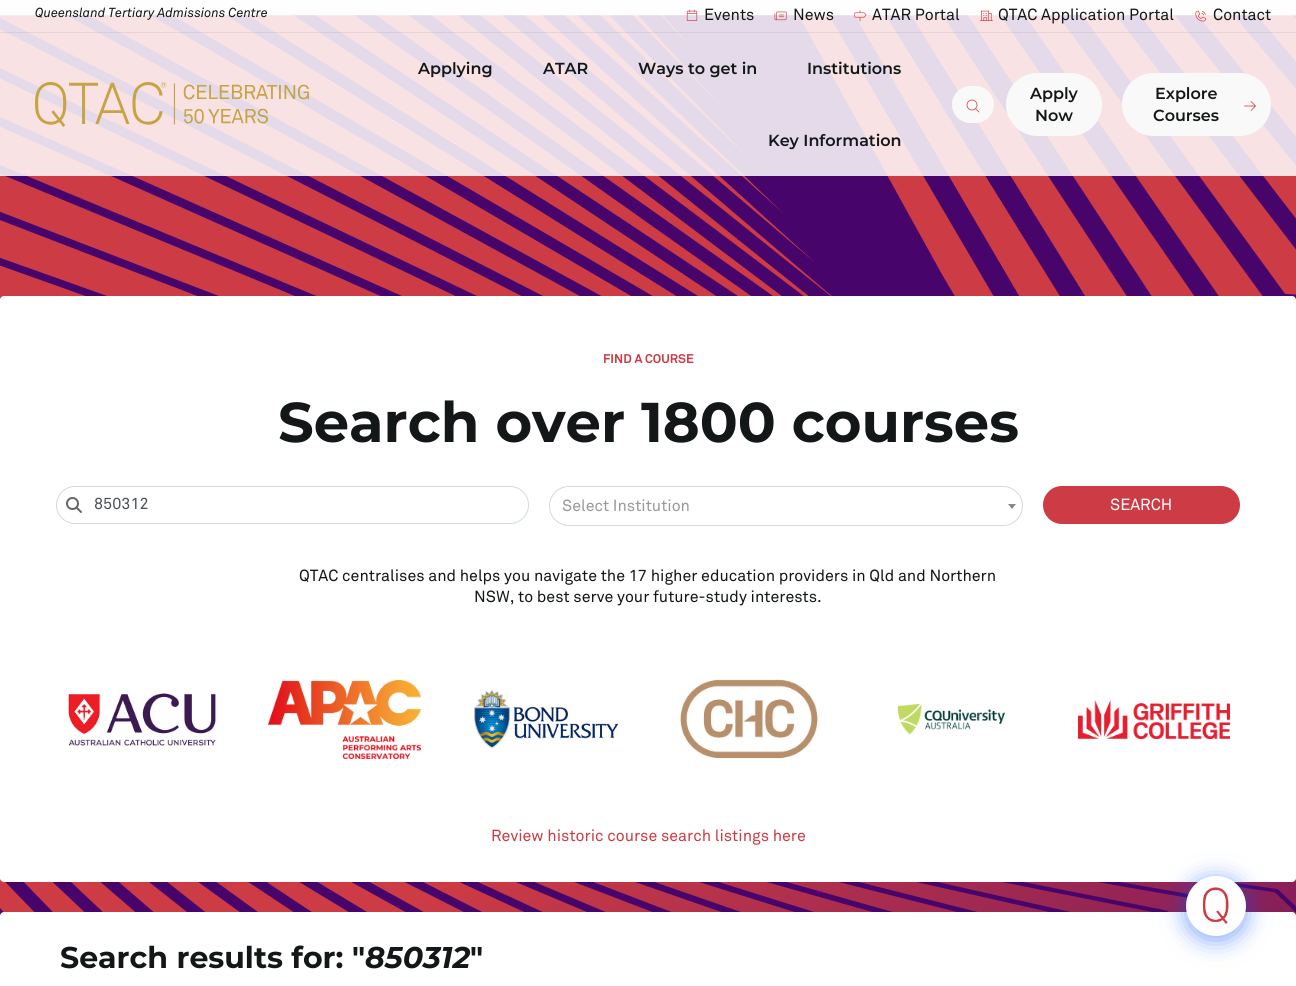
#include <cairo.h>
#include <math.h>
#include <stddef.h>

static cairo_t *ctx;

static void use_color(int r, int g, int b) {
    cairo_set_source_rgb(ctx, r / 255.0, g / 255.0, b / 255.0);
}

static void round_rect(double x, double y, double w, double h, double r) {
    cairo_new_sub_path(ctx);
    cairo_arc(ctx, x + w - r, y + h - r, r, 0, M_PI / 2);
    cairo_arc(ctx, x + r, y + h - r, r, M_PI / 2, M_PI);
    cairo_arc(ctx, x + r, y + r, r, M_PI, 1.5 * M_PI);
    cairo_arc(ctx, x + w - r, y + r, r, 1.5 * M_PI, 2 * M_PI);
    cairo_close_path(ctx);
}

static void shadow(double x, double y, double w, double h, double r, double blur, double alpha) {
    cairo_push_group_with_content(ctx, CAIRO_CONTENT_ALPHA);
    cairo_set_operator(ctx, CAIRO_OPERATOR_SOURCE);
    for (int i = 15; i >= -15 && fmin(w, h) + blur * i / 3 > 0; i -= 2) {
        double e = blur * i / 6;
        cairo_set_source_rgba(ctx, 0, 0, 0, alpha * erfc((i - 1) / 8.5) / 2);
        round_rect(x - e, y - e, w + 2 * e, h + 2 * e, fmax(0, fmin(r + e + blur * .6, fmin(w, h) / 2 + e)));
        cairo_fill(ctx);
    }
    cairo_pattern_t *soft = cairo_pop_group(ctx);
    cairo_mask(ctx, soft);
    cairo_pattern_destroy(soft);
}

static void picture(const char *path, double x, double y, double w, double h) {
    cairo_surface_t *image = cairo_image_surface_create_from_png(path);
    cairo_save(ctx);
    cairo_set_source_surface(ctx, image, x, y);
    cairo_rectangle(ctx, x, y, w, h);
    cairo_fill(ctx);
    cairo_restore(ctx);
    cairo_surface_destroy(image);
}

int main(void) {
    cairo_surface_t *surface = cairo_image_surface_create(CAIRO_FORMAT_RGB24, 1296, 986);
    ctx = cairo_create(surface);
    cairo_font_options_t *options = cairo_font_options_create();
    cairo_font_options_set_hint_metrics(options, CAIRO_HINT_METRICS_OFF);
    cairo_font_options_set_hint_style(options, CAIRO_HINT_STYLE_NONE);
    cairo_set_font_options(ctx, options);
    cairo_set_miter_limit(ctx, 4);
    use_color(250, 250, 250);
    cairo_paint(ctx);
    picture("img9.png", 0, 15, 1296, 901);
    cairo_set_source_rgba(ctx, 1, 1, 1, 0.85);
    cairo_rectangle(ctx, 0, 0, 1296, 33);
    cairo_fill(ctx);
    cairo_set_source_rgba(ctx, 0.075, 0.09, 0.094, 0.07);
    cairo_rectangle(ctx, 0, 32, 1296, 1);
    cairo_fill(ctx);
    cairo_select_font_face(ctx, "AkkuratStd", CAIRO_FONT_SLANT_ITALIC, CAIRO_FONT_WEIGHT_NORMAL);
    cairo_set_font_size(ctx, 13);
    use_color(19, 23, 24);
    cairo_move_to(ctx, 35, 17);
    cairo_show_text(ctx, "Queensland Tertiary Admissions Centre");
    picture("img1.png", 686, 9, 12, 12);
    cairo_select_font_face(ctx, "AkkuratStd", CAIRO_FONT_SLANT_NORMAL, CAIRO_FONT_WEIGHT_NORMAL);
    cairo_set_font_size(ctx, 16);
    cairo_move_to(ctx, 704, 20);
    cairo_show_text(ctx, "Events");
    picture("img2.png", 774, 11, 13, 10);
    cairo_move_to(ctx, 793, 20);
    cairo_show_text(ctx, "News");
    picture("img3.png", 854, 10, 13, 12);
    cairo_move_to(ctx, 872, 20);
    cairo_show_text(ctx, "ATAR Portal");
    picture("img4.png", 980, 10, 13, 11);
    cairo_move_to(ctx, 998, 20);
    cairo_show_text(ctx, "QTAC Application Portal");
    picture("img5.png", 1195, 10, 12, 12);
    cairo_move_to(ctx, 1213, 20);
    cairo_show_text(ctx, "Contact");
    cairo_set_source_rgba(ctx, 1, 1, 1, 0.85);
    cairo_rectangle(ctx, 0, 33, 1296, 143);
    cairo_fill(ctx);
    picture("img6.png", 35, 82, 274, 45);
    cairo_select_font_face(ctx, "Montserrat SemiBold", CAIRO_FONT_SLANT_NORMAL, CAIRO_FONT_WEIGHT_NORMAL);
    use_color(19, 23, 24);
    cairo_move_to(ctx, 418, 74);
    cairo_show_text(ctx, "Applying");
    cairo_move_to(ctx, 543, 74);
    cairo_show_text(ctx, "ATAR");
    cairo_move_to(ctx, 638, 74);
    cairo_show_text(ctx, "Ways to get in");
    cairo_move_to(ctx, 807, 74);
    cairo_show_text(ctx, "Institutions");
    cairo_move_to(ctx, 768, 146);
    cairo_show_text(ctx, "Key Information");
    use_color(249, 249, 249);
    round_rect(952, 86, 42, 37, 18.5);
    cairo_fill(ctx);
    picture("img7.png", 966, 99, 14, 14);
    round_rect(1006, 73, 96, 63, 31.5);
    cairo_fill(ctx);
    use_color(19, 23, 24);
    cairo_move_to(ctx, 1030, 99);
    cairo_show_text(ctx, "Apply");
    cairo_move_to(ctx, 1035, 121);
    cairo_show_text(ctx, "Now");
    use_color(249, 249, 249);
    round_rect(1122, 73, 149, 63, 31.5);
    cairo_fill(ctx);
    use_color(19, 23, 24);
    cairo_move_to(ctx, 1155, 99);
    cairo_show_text(ctx, "Explore");
    cairo_move_to(ctx, 1153, 121);
    cairo_show_text(ctx, "Courses");
    picture("img8.png", 1244, 101, 12, 10);
    use_color(255, 255, 255);
    round_rect(0, 296, 1296, 586, 4);
    cairo_fill(ctx);
    cairo_select_font_face(ctx, "AkkuratStd", CAIRO_FONT_SLANT_NORMAL, CAIRO_FONT_WEIGHT_BOLD);
    cairo_set_font_size(ctx, 12.5);
    use_color(205, 59, 68);
    cairo_move_to(ctx, 603, 363);
    cairo_show_text(ctx, "FIND A COURSE");
    cairo_select_font_face(ctx, "Montserrat", CAIRO_FONT_SLANT_NORMAL, CAIRO_FONT_WEIGHT_BOLD);
    cairo_set_font_size(ctx, 56);
    use_color(19, 23, 24);
    cairo_move_to(ctx, 278, 442);
    cairo_show_text(ctx, "Search over 1800 courses");
    round_rect(56.5, 486.5, 472, 37, 18.5);
    use_color(209, 219, 219);
    cairo_set_line_width(ctx, 1);
    cairo_stroke(ctx);
    picture("img10.png", 66, 497, 16, 16);
    cairo_select_font_face(ctx, "AkkuratStd", CAIRO_FONT_SLANT_NORMAL, CAIRO_FONT_WEIGHT_NORMAL);
    cairo_set_font_size(ctx, 16);
    use_color(73, 80, 87);
    cairo_move_to(ctx, 94, 509);
    cairo_show_text(ctx, "850312");
    round_rect(549.5, 486.5, 473, 39, 19.5);
    use_color(209, 219, 219);
    cairo_stroke(ctx);
    use_color(153, 153, 153);
    cairo_move_to(ctx, 562, 511);
    cairo_show_text(ctx, "Select Institution");
    use_color(136, 136, 136);
    cairo_new_path(ctx);
    cairo_move_to(ctx, 1008, 504);
    cairo_line_to(ctx, 1016, 504);
    cairo_line_to(ctx, 1012, 509);
    cairo_close_path(ctx);
    cairo_fill(ctx);
    use_color(205, 59, 68);
    round_rect(1043, 486, 197, 38, 19);
    cairo_fill(ctx);
    use_color(255, 255, 255);
    cairo_move_to(ctx, 1110, 510);
    cairo_show_text(ctx, "SEARCH");
    use_color(19, 23, 24);
    cairo_move_to(ctx, 299, 581);
    cairo_show_text(ctx, "QTAC centralises and helps you navigate the 17 higher education providers in Qld and Northern");
    cairo_move_to(ctx, 474, 602);
    cairo_show_text(ctx, "NSW, to best serve your future-study interests.");
    picture("img11.png", 68, 693, 148, 53);
    picture("img12.png", 268, 680, 153, 79);
    picture("img13.png", 474, 689, 145, 60);
    picture("img14.png", 680, 679, 138, 80);
    picture("img15.png", 897, 704, 108, 31);
    picture("img16.png", 1078, 700, 152, 39);
    use_color(205, 59, 68);
    cairo_move_to(ctx, 491, 841);
    cairo_show_text(ctx, "Review historic course search listings here");
    use_color(255, 255, 255);
    round_rect(0, 912, 1296, 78, 4);
    cairo_fill(ctx);
    cairo_select_font_face(ctx, "Montserrat", CAIRO_FONT_SLANT_NORMAL, CAIRO_FONT_WEIGHT_BOLD);
    cairo_set_font_size(ctx, 30);
    use_color(19, 23, 24);
    cairo_move_to(ctx, 60, 968);
    cairo_show_text(ctx, "Search results for: \"");
    cairo_select_font_face(ctx, "Montserrat", CAIRO_FONT_SLANT_ITALIC, CAIRO_FONT_WEIGHT_BOLD);
    cairo_move_to(ctx, 365, 968);
    cairo_show_text(ctx, "850312");
    cairo_select_font_face(ctx, "Montserrat", CAIRO_FONT_SLANT_NORMAL, CAIRO_FONT_WEIGHT_BOLD);
    cairo_move_to(ctx, 470, 968);
    cairo_show_text(ctx, "\"");
    use_color(0, 77, 255);
    shadow(1186, 880, 60, 60, 30, 12, 0.5);
    use_color(255, 255, 255);
    cairo_arc(ctx, 1216, 906, 30, 0, 2 * M_PI);
    cairo_fill(ctx);
    picture("img17.png", 1202, 887, 27, 37);
    cairo_surface_write_to_png(surface, "result.png");
    cairo_font_options_destroy(options);
    cairo_destroy(ctx);
    cairo_surface_destroy(surface);
    return 0;
}
